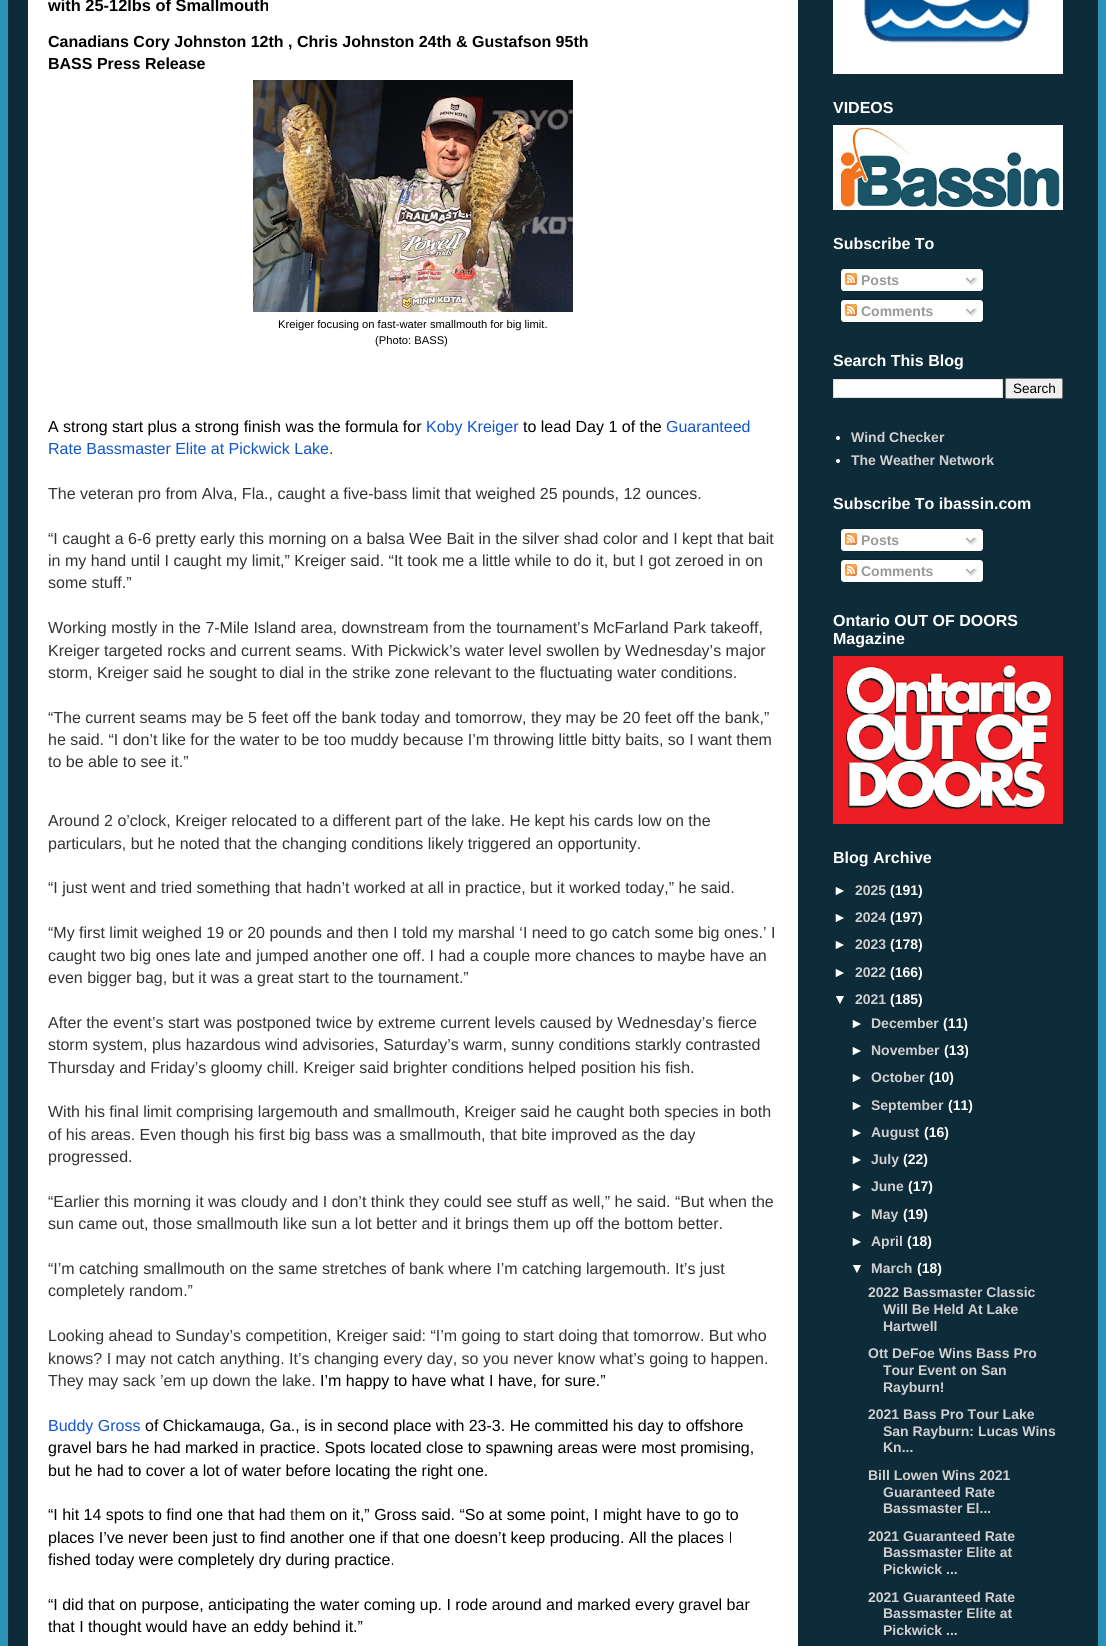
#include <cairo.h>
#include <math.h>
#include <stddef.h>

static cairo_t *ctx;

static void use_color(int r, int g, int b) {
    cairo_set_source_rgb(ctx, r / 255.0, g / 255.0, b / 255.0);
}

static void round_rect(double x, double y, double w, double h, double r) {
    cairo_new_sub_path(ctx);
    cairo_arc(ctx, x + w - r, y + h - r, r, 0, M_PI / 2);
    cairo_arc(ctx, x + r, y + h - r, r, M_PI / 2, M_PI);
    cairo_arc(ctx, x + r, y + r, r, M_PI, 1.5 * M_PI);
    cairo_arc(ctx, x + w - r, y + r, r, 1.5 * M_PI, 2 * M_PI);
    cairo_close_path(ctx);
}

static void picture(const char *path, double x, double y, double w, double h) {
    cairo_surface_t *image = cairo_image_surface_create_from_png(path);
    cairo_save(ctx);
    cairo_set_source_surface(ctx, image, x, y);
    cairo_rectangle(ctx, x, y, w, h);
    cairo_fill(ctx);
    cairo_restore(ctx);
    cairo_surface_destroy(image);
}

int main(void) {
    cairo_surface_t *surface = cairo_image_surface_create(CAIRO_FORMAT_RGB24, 1106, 1646);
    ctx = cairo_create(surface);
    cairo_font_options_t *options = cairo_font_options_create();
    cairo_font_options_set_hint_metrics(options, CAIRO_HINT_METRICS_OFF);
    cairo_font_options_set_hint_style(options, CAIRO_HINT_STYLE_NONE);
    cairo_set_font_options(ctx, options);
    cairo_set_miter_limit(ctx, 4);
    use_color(43, 147, 186);
    cairo_paint(ctx);
    use_color(13, 43, 57);
    cairo_rectangle(ctx, 8, 0, 1090, 1646);
    cairo_fill(ctx);
    use_color(255, 255, 255);
    cairo_rectangle(ctx, 28, 0, 770, 1646);
    cairo_fill(ctx);
    cairo_select_font_face(ctx, "Liberation Sans", CAIRO_FONT_SLANT_NORMAL, CAIRO_FONT_WEIGHT_BOLD);
    cairo_set_font_size(ctx, 16.4);
    use_color(0, 0, 0);
    cairo_move_to(ctx, 48, 11);
    cairo_show_text(ctx, "with 25-12lbs of Smallmouth");
    cairo_set_font_size(ctx, 16);
    cairo_move_to(ctx, 48, 47);
    cairo_show_text(ctx, "Canadians Cory Johnston 12th , Chris Johnston 24th & Gustafson 95th");
    cairo_move_to(ctx, 48, 69);
    cairo_show_text(ctx, "BASS Press Release");
    picture("img1.png", 253, 80, 320, 232);
    cairo_select_font_face(ctx, "Liberation Sans", CAIRO_FONT_SLANT_NORMAL, CAIRO_FONT_WEIGHT_NORMAL);
    cairo_set_font_size(ctx, 11.2);
    cairo_move_to(ctx, 278, 328);
    cairo_show_text(ctx, "Kreiger focusing on fast-water smallmouth for big limit.");
    cairo_move_to(ctx, 375, 344);
    cairo_show_text(ctx, "(Photo: BASS)");
    cairo_set_font_size(ctx, 16);
    cairo_move_to(ctx, 48, 432);
    cairo_show_text(ctx, "A strong start plus a strong finish was the formula for");
    use_color(17, 85, 204);
    cairo_move_to(ctx, 426, 432);
    cairo_show_text(ctx, "Koby Kreiger");
    use_color(0, 0, 0);
    cairo_move_to(ctx, 523, 432);
    cairo_show_text(ctx, "to lead Day 1 of the");
    use_color(17, 85, 204);
    cairo_move_to(ctx, 666, 432);
    cairo_show_text(ctx, "Guaranteed");
    cairo_move_to(ctx, 48, 454);
    cairo_show_text(ctx, "Rate Bassmaster Elite at Pickwick Lake");
    use_color(51, 51, 51);
    cairo_move_to(ctx, 329, 454);
    cairo_show_text(ctx, ".");
    cairo_move_to(ctx, 48, 499);
    cairo_show_text(ctx, "The veteran pro from Alva, Fla., caught a five-bass limit that weighed 25 pounds, 12 ounces.");
    cairo_move_to(ctx, 48, 544);
    cairo_show_text(ctx, "“I caught a 6-6 pretty early this morning on a balsa Wee Bait in the silver shad color and I kept that bait");
    cairo_move_to(ctx, 48, 566);
    cairo_show_text(ctx, "in my hand until I caught my limit,” Kreiger said. “It took me a little while to do it, but I got zeroed in on");
    cairo_move_to(ctx, 48, 588);
    cairo_show_text(ctx, "some stuff.”");
    cairo_move_to(ctx, 48, 633);
    cairo_show_text(ctx, "Working mostly in the 7-Mile Island area, downstream from the tournament’s McFarland Park takeoff,");
    cairo_move_to(ctx, 48, 656);
    cairo_show_text(ctx, "Kreiger targeted rocks and current seams. With Pickwick’s water level swollen by Wednesday’s major");
    cairo_move_to(ctx, 48, 678);
    cairo_show_text(ctx, "storm, Kreiger said he sought to dial in the strike zone relevant to the fluctuating water conditions.");
    cairo_move_to(ctx, 48, 723);
    cairo_show_text(ctx, "“The current seams may be 5 feet off the bank today and tomorrow, they may be 20 feet off the bank,”");
    cairo_move_to(ctx, 48, 745);
    cairo_show_text(ctx, "he said. “I don’t like for the water to be too muddy because I’m throwing little bitty baits, so I want them");
    cairo_move_to(ctx, 48, 767);
    cairo_show_text(ctx, "to be able to see it.”");
    cairo_move_to(ctx, 48, 826);
    cairo_show_text(ctx, "Around 2 o’clock, Kreiger relocated to a different part of the lake. He kept his cards low on the");
    cairo_move_to(ctx, 48, 849);
    cairo_show_text(ctx, "particulars, but he noted that the changing conditions likely triggered an opportunity.");
    cairo_move_to(ctx, 48, 893);
    cairo_show_text(ctx, "“I just went and tried something that hadn’t worked at all in practice, but it worked today,” he said.");
    cairo_move_to(ctx, 48, 938);
    cairo_show_text(ctx, "“My first limit weighed 19 or 20 pounds and then I told my marshal ‘I need to go catch some big ones.’ I");
    cairo_move_to(ctx, 48, 961);
    cairo_show_text(ctx, "caught two big ones late and jumped another one off. I had a couple more chances to maybe have an");
    cairo_move_to(ctx, 48, 983);
    cairo_show_text(ctx, "even bigger bag, but it was a great start to the tournament.”");
    cairo_move_to(ctx, 48, 1028);
    cairo_show_text(ctx, "After the event’s start was postponed twice by extreme current levels caused by Wednesday’s fierce");
    cairo_move_to(ctx, 48, 1050);
    cairo_show_text(ctx, "storm system, plus hazardous wind advisories, Saturday’s warm, sunny conditions starkly contrasted");
    cairo_move_to(ctx, 48, 1073);
    cairo_show_text(ctx, "Thursday and Friday’s gloomy chill. Kreiger said brighter conditions helped position his fish.");
    cairo_move_to(ctx, 48, 1117);
    cairo_show_text(ctx, "With his final limit comprising largemouth and smallmouth, Kreiger said he caught both species in both");
    cairo_move_to(ctx, 48, 1140);
    cairo_show_text(ctx, "of his areas. Even though his first big bass was a smallmouth, that bite improved as the day");
    cairo_move_to(ctx, 48, 1162);
    cairo_show_text(ctx, "progressed.");
    cairo_move_to(ctx, 48, 1207);
    cairo_show_text(ctx, "“Earlier this morning it was cloudy and I don’t think they could see stuff as well,” he said. “But when the");
    cairo_move_to(ctx, 48, 1229);
    cairo_show_text(ctx, "sun came out, those smallmouth like sun a lot better and it brings them up off the bottom better.");
    cairo_move_to(ctx, 48, 1274);
    cairo_show_text(ctx, "“I’m catching smallmouth on the same stretches of bank where I’m catching largemouth. It’s just");
    cairo_move_to(ctx, 48, 1296);
    cairo_show_text(ctx, "completely random.”");
    cairo_move_to(ctx, 48, 1341);
    cairo_show_text(ctx, "Looking ahead to Sunday’s competition, Kreiger said: “I’m going to start doing that tomorrow. But who");
    cairo_move_to(ctx, 48, 1364);
    cairo_show_text(ctx, "knows? I may not catch anything. It’s changing every day, so you never know what’s going to happen.");
    cairo_move_to(ctx, 48, 1386);
    cairo_show_text(ctx, "They may sack ’em up down the lake.");
    use_color(0, 0, 0);
    cairo_move_to(ctx, 320, 1386);
    cairo_show_text(ctx, "I’m happy to have what I have, for sure.”");
    use_color(17, 85, 204);
    cairo_move_to(ctx, 48, 1431);
    cairo_show_text(ctx, "Buddy Gross");
    use_color(0, 0, 0);
    cairo_move_to(ctx, 145, 1431);
    cairo_show_text(ctx, "of Chickamauga, Ga., is in second place with 23-3. He committed his day to offshore");
    cairo_move_to(ctx, 48, 1453);
    cairo_show_text(ctx, "gravel bars he had marked in practice. Spots located close to spawning areas were most promising,");
    cairo_move_to(ctx, 48, 1476);
    cairo_show_text(ctx, "but he had to cover a lot of water before locating the right one.");
    cairo_move_to(ctx, 48, 1520);
    cairo_show_text(ctx, "“I hit 14 spots to find one that had");
    use_color(51, 51, 51);
    cairo_move_to(ctx, 290, 1520);
    cairo_show_text(ctx, "th");
    use_color(0, 0, 0);
    cairo_move_to(ctx, 303, 1520);
    cairo_show_text(ctx, "em on it,” Gross said. “So at some point, I might have to go to");
    cairo_move_to(ctx, 48, 1543);
    cairo_show_text(ctx, "places I’ve never been just to find another one if that one doesn’t keep producing. All the places I");
    cairo_move_to(ctx, 48, 1565);
    cairo_show_text(ctx, "fished today were completely dry during practice.");
    cairo_move_to(ctx, 48, 1610);
    cairo_show_text(ctx, "“I did that on purpose, anticipating the water coming up. I rode around and marked every gravel bar");
    cairo_move_to(ctx, 48, 1632);
    cairo_show_text(ctx, "that I thought would have an eddy behind it.”");
    picture("img2.png", 833, 0, 230, 74);
    cairo_select_font_face(ctx, "Liberation Sans", CAIRO_FONT_SLANT_NORMAL, CAIRO_FONT_WEIGHT_BOLD);
    use_color(255, 255, 255);
    cairo_move_to(ctx, 833, 113);
    cairo_show_text(ctx, "VIDEOS");
    picture("img3.png", 833, 125, 230, 85);
    cairo_move_to(ctx, 833, 249);
    cairo_show_text(ctx, "Subscribe To");
    picture("img4.png", 840, 268, 144, 21);
    picture("img5.png", 845, 273, 12, 12);
    cairo_set_font_size(ctx, 14);
    use_color(153, 153, 153);
    cairo_move_to(ctx, 861, 285);
    cairo_show_text(ctx, "Posts");
    picture("img6.png", 965, 277, 13, 9);
    picture("img7.png", 840, 289, 144, 3);
    picture("img4.png", 840, 299, 144, 21);
    picture("img5.png", 845, 304, 12, 12);
    cairo_move_to(ctx, 861, 316);
    cairo_show_text(ctx, "Comments");
    picture("img6.png", 965, 308, 13, 9);
    picture("img7.png", 840, 320, 144, 3);
    cairo_set_font_size(ctx, 16);
    use_color(255, 255, 255);
    cairo_move_to(ctx, 833, 366);
    cairo_show_text(ctx, "Search This Blog");
    cairo_rectangle(ctx, 833.5, 379.5, 169, 18);
    cairo_fill_preserve(ctx);
    use_color(221, 221, 221);
    cairo_set_line_width(ctx, 1);
    cairo_stroke(ctx);
    use_color(239, 239, 239);
    round_rect(1005.5, 378.5, 57, 20, 1.5);
    cairo_fill_preserve(ctx);
    use_color(118, 118, 118);
    cairo_stroke(ctx);
    cairo_select_font_face(ctx, "Liberation Sans", CAIRO_FONT_SLANT_NORMAL, CAIRO_FONT_WEIGHT_NORMAL);
    cairo_set_font_size(ctx, 13.5);
    use_color(0, 0, 0);
    cairo_move_to(ctx, 1013, 393);
    cairo_show_text(ctx, "Search");
    use_color(255, 255, 255);
    cairo_new_path(ctx);
    cairo_arc(ctx, 838, 438, 2, 0, 2 * M_PI);
    cairo_fill(ctx);
    cairo_select_font_face(ctx, "Liberation Sans", CAIRO_FONT_SLANT_NORMAL, CAIRO_FONT_WEIGHT_BOLD);
    cairo_set_font_size(ctx, 14);
    use_color(208, 208, 208);
    cairo_move_to(ctx, 851, 442);
    cairo_show_text(ctx, "Wind Checker");
    use_color(255, 255, 255);
    cairo_new_path(ctx);
    cairo_arc(ctx, 838, 461, 2, 0, 2 * M_PI);
    cairo_fill(ctx);
    use_color(208, 208, 208);
    cairo_move_to(ctx, 851, 465);
    cairo_show_text(ctx, "The Weather Network");
    cairo_set_font_size(ctx, 16);
    use_color(255, 255, 255);
    cairo_move_to(ctx, 833, 509);
    cairo_show_text(ctx, "Subscribe To ibassin.com");
    picture("img4.png", 840, 528, 144, 21);
    picture("img5.png", 845, 533, 12, 12);
    cairo_set_font_size(ctx, 14);
    use_color(153, 153, 153);
    cairo_move_to(ctx, 861, 545);
    cairo_show_text(ctx, "Posts");
    picture("img6.png", 965, 537, 13, 9);
    picture("img7.png", 840, 549, 144, 3);
    picture("img4.png", 840, 559, 144, 21);
    picture("img5.png", 845, 564, 12, 12);
    cairo_move_to(ctx, 861, 576);
    cairo_show_text(ctx, "Comments");
    picture("img6.png", 965, 568, 13, 9);
    picture("img7.png", 840, 580, 144, 3);
    cairo_set_font_size(ctx, 16);
    use_color(255, 255, 255);
    cairo_move_to(ctx, 833, 626);
    cairo_show_text(ctx, "Ontario OUT OF DOORS");
    cairo_move_to(ctx, 833, 644);
    cairo_show_text(ctx, "Magazine");
    picture("img8.png", 833, 656, 230, 168);
    cairo_move_to(ctx, 833, 863);
    cairo_show_text(ctx, "Blog Archive");
    cairo_set_font_size(ctx, 14);
    cairo_move_to(ctx, 833, 895);
    cairo_show_text(ctx, "►");
    use_color(208, 208, 208);
    cairo_move_to(ctx, 855, 895);
    cairo_show_text(ctx, "2025");
    use_color(255, 255, 255);
    cairo_move_to(ctx, 890, 895);
    cairo_show_text(ctx, "(191)");
    cairo_move_to(ctx, 833, 922);
    cairo_show_text(ctx, "►");
    use_color(208, 208, 208);
    cairo_move_to(ctx, 855, 922);
    cairo_show_text(ctx, "2024");
    use_color(255, 255, 255);
    cairo_move_to(ctx, 890, 922);
    cairo_show_text(ctx, "(197)");
    cairo_move_to(ctx, 833, 949);
    cairo_show_text(ctx, "►");
    use_color(208, 208, 208);
    cairo_move_to(ctx, 855, 949);
    cairo_show_text(ctx, "2023");
    use_color(255, 255, 255);
    cairo_move_to(ctx, 890, 949);
    cairo_show_text(ctx, "(178)");
    cairo_move_to(ctx, 833, 977);
    cairo_show_text(ctx, "►");
    use_color(208, 208, 208);
    cairo_move_to(ctx, 855, 977);
    cairo_show_text(ctx, "2022");
    use_color(255, 255, 255);
    cairo_move_to(ctx, 890, 977);
    cairo_show_text(ctx, "(166)");
    cairo_move_to(ctx, 833, 1004);
    cairo_show_text(ctx, "▼");
    use_color(208, 208, 208);
    cairo_move_to(ctx, 855, 1004);
    cairo_show_text(ctx, "2021");
    use_color(255, 255, 255);
    cairo_move_to(ctx, 890, 1004);
    cairo_show_text(ctx, "(185)");
    cairo_move_to(ctx, 850, 1028);
    cairo_show_text(ctx, "►");
    use_color(208, 208, 208);
    cairo_move_to(ctx, 871, 1028);
    cairo_show_text(ctx, "December");
    use_color(255, 255, 255);
    cairo_move_to(ctx, 943, 1028);
    cairo_show_text(ctx, "(11)");
    cairo_move_to(ctx, 850, 1055);
    cairo_show_text(ctx, "►");
    use_color(208, 208, 208);
    cairo_move_to(ctx, 871, 1055);
    cairo_show_text(ctx, "November");
    use_color(255, 255, 255);
    cairo_move_to(ctx, 944, 1055);
    cairo_show_text(ctx, "(13)");
    cairo_move_to(ctx, 850, 1082);
    cairo_show_text(ctx, "►");
    use_color(208, 208, 208);
    cairo_move_to(ctx, 871, 1082);
    cairo_show_text(ctx, "October");
    use_color(255, 255, 255);
    cairo_move_to(ctx, 929, 1082);
    cairo_show_text(ctx, "(10)");
    cairo_move_to(ctx, 850, 1110);
    cairo_show_text(ctx, "►");
    use_color(208, 208, 208);
    cairo_move_to(ctx, 871, 1110);
    cairo_show_text(ctx, "September");
    use_color(255, 255, 255);
    cairo_move_to(ctx, 948, 1110);
    cairo_show_text(ctx, "(11)");
    cairo_move_to(ctx, 850, 1137);
    cairo_show_text(ctx, "►");
    use_color(208, 208, 208);
    cairo_move_to(ctx, 871, 1137);
    cairo_show_text(ctx, "August");
    use_color(255, 255, 255);
    cairo_move_to(ctx, 924, 1137);
    cairo_show_text(ctx, "(16)");
    cairo_move_to(ctx, 850, 1164);
    cairo_show_text(ctx, "►");
    use_color(208, 208, 208);
    cairo_move_to(ctx, 871, 1164);
    cairo_show_text(ctx, "July");
    use_color(255, 255, 255);
    cairo_move_to(ctx, 903, 1164);
    cairo_show_text(ctx, "(22)");
    cairo_move_to(ctx, 850, 1191);
    cairo_show_text(ctx, "►");
    use_color(208, 208, 208);
    cairo_move_to(ctx, 871, 1191);
    cairo_show_text(ctx, "June");
    use_color(255, 255, 255);
    cairo_move_to(ctx, 908, 1191);
    cairo_show_text(ctx, "(17)");
    cairo_move_to(ctx, 850, 1219);
    cairo_show_text(ctx, "►");
    use_color(208, 208, 208);
    cairo_move_to(ctx, 871, 1219);
    cairo_show_text(ctx, "May");
    use_color(255, 255, 255);
    cairo_move_to(ctx, 903, 1219);
    cairo_show_text(ctx, "(19)");
    cairo_move_to(ctx, 850, 1246);
    cairo_show_text(ctx, "►");
    use_color(208, 208, 208);
    cairo_move_to(ctx, 871, 1246);
    cairo_show_text(ctx, "April");
    use_color(255, 255, 255);
    cairo_move_to(ctx, 907, 1246);
    cairo_show_text(ctx, "(18)");
    cairo_move_to(ctx, 850, 1273);
    cairo_show_text(ctx, "▼");
    use_color(208, 208, 208);
    cairo_move_to(ctx, 871, 1273);
    cairo_show_text(ctx, "March");
    use_color(255, 255, 255);
    cairo_move_to(ctx, 917, 1273);
    cairo_show_text(ctx, "(18)");
    use_color(208, 208, 208);
    cairo_move_to(ctx, 868, 1297);
    cairo_show_text(ctx, "2022 Bassmaster Classic");
    cairo_move_to(ctx, 883, 1314);
    cairo_show_text(ctx, "Will Be Held At Lake");
    cairo_move_to(ctx, 883, 1331);
    cairo_show_text(ctx, "Hartwell");
    cairo_move_to(ctx, 868, 1358);
    cairo_show_text(ctx, "Ott DeFoe Wins Bass Pro");
    cairo_move_to(ctx, 883, 1375);
    cairo_show_text(ctx, "Tour Event on San");
    cairo_move_to(ctx, 883, 1392);
    cairo_show_text(ctx, "Rayburn!");
    cairo_move_to(ctx, 868, 1419);
    cairo_show_text(ctx, "2021 Bass Pro Tour Lake");
    cairo_move_to(ctx, 883, 1436);
    cairo_show_text(ctx, "San Rayburn: Lucas Wins");
    cairo_move_to(ctx, 883, 1452);
    cairo_show_text(ctx, "Kn...");
    cairo_move_to(ctx, 868, 1480);
    cairo_show_text(ctx, "Bill Lowen Wins 2021");
    cairo_move_to(ctx, 883, 1497);
    cairo_show_text(ctx, "Guaranteed Rate");
    cairo_move_to(ctx, 883, 1513);
    cairo_show_text(ctx, "Bassmaster El...");
    cairo_move_to(ctx, 868, 1541);
    cairo_show_text(ctx, "2021 Guaranteed Rate");
    cairo_move_to(ctx, 883, 1557);
    cairo_show_text(ctx, "Bassmaster Elite at");
    cairo_move_to(ctx, 883, 1574);
    cairo_show_text(ctx, "Pickwick ...");
    cairo_move_to(ctx, 868, 1602);
    cairo_show_text(ctx, "2021 Guaranteed Rate");
    cairo_move_to(ctx, 883, 1618);
    cairo_show_text(ctx, "Bassmaster Elite at");
    cairo_move_to(ctx, 883, 1635);
    cairo_show_text(ctx, "Pickwick ...");
    cairo_surface_write_to_png(surface, "result.png");
    cairo_font_options_destroy(options);
    cairo_destroy(ctx);
    cairo_surface_destroy(surface);
    return 0;
}
